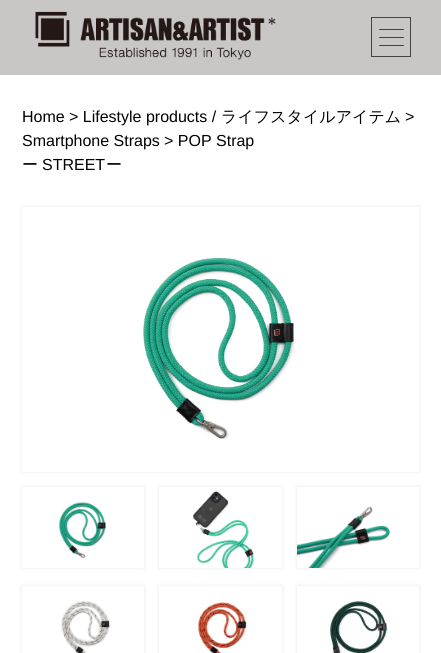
#include <cairo.h>
#include <math.h>
#include <stddef.h>

static cairo_t *ctx;

static void use_color(int r, int g, int b) {
    cairo_set_source_rgb(ctx, r / 255.0, g / 255.0, b / 255.0);
}

static void round_rect(double x, double y, double w, double h, double r) {
    cairo_new_sub_path(ctx);
    cairo_arc(ctx, x + w - r, y + h - r, r, 0, M_PI / 2);
    cairo_arc(ctx, x + r, y + h - r, r, M_PI / 2, M_PI);
    cairo_arc(ctx, x + r, y + r, r, M_PI, 1.5 * M_PI);
    cairo_arc(ctx, x + w - r, y + r, r, 1.5 * M_PI, 2 * M_PI);
    cairo_close_path(ctx);
}

static void shadow(double x, double y, double w, double h, double r, double blur, double alpha) {
    cairo_push_group_with_content(ctx, CAIRO_CONTENT_ALPHA);
    cairo_set_operator(ctx, CAIRO_OPERATOR_SOURCE);
    for (int i = 15; i >= -15 && fmin(w, h) + blur * i / 3 > 0; i -= 2) {
        double e = blur * i / 6;
        cairo_set_source_rgba(ctx, 0, 0, 0, alpha * erfc((i - 1) / 8.5) / 2);
        round_rect(x - e, y - e, w + 2 * e, h + 2 * e, fmax(0, fmin(r + e + blur * .6, fmin(w, h) / 2 + e)));
        cairo_fill(ctx);
    }
    cairo_pattern_t *soft = cairo_pop_group(ctx);
    cairo_mask(ctx, soft);
    cairo_pattern_destroy(soft);
}

static void picture(const char *path, double x, double y, double w, double h) {
    cairo_surface_t *image = cairo_image_surface_create_from_png(path);
    cairo_save(ctx);
    cairo_set_source_surface(ctx, image, x, y);
    cairo_rectangle(ctx, x, y, w, h);
    cairo_fill(ctx);
    cairo_restore(ctx);
    cairo_surface_destroy(image);
}

int main(void) {
    cairo_surface_t *surface = cairo_image_surface_create(CAIRO_FORMAT_RGB24, 441, 653);
    ctx = cairo_create(surface);
    cairo_font_options_t *options = cairo_font_options_create();
    cairo_font_options_set_hint_metrics(options, CAIRO_HINT_METRICS_OFF);
    cairo_font_options_set_hint_style(options, CAIRO_HINT_STYLE_NONE);
    cairo_set_font_options(ctx, options);
    cairo_set_miter_limit(ctx, 4);
    use_color(255, 255, 255);
    cairo_paint(ctx);
    use_color(201, 199, 198);
    cairo_rectangle(ctx, 0, 0, 441, 75);
    cairo_fill(ctx);
    picture("img1.png", 35, 11, 241, 49);
    cairo_rectangle(ctx, 371.5, 17.5, 39, 39);
    use_color(67, 67, 69);
    cairo_set_line_width(ctx, 1);
    cairo_stroke(ctx);
    round_rect(379, 37, 25, 1, 0.5);
    cairo_fill(ctx);
    round_rect(379, 29, 25, 1, 0.5);
    cairo_fill(ctx);
    round_rect(379, 45, 25, 1, 0.5);
    cairo_fill(ctx);
    cairo_select_font_face(ctx, "Liberation Sans", CAIRO_FONT_SLANT_NORMAL, CAIRO_FONT_WEIGHT_NORMAL);
    cairo_set_font_size(ctx, 16);
    use_color(0, 0, 0);
    cairo_move_to(ctx, 22, 122);
    cairo_show_text(ctx, "Home");
    cairo_move_to(ctx, 69, 122);
    cairo_show_text(ctx, "> Lifestyle products /");
    cairo_select_font_face(ctx, "WenQuanYi Zen Hei Medium", CAIRO_FONT_SLANT_NORMAL, CAIRO_FONT_WEIGHT_NORMAL);
    cairo_move_to(ctx, 221, 122);
    cairo_show_text(ctx, "ライフスタイルアイテム");
    cairo_select_font_face(ctx, "Liberation Sans", CAIRO_FONT_SLANT_NORMAL, CAIRO_FONT_WEIGHT_NORMAL);
    cairo_move_to(ctx, 405, 122);
    cairo_show_text(ctx, ">");
    cairo_move_to(ctx, 22, 146);
    cairo_show_text(ctx, "Smartphone Straps");
    cairo_move_to(ctx, 164, 146);
    cairo_show_text(ctx, "> POP Strap");
    cairo_select_font_face(ctx, "WenQuanYi Zen Hei Medium", CAIRO_FONT_SLANT_NORMAL, CAIRO_FONT_WEIGHT_NORMAL);
    cairo_move_to(ctx, 22, 170);
    cairo_show_text(ctx, "ー");
    cairo_select_font_face(ctx, "Liberation Sans", CAIRO_FONT_SLANT_NORMAL, CAIRO_FONT_WEIGHT_NORMAL);
    cairo_move_to(ctx, 42, 170);
    cairo_show_text(ctx, "STREET");
    cairo_select_font_face(ctx, "WenQuanYi Zen Hei Medium", CAIRO_FONT_SLANT_NORMAL, CAIRO_FONT_WEIGHT_NORMAL);
    cairo_move_to(ctx, 106, 170);
    cairo_show_text(ctx, "ー");
    cairo_save(ctx);
    cairo_set_fill_rule(ctx, CAIRO_FILL_RULE_EVEN_ODD);
    cairo_new_path(ctx);
    cairo_move_to(ctx, 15, 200);
    cairo_line_to(ctx, 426, 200);
    cairo_line_to(ctx, 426, 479);
    cairo_line_to(ctx, 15, 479);
    cairo_close_path(ctx);
    cairo_move_to(ctx, 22, 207);
    cairo_line_to(ctx, 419, 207);
    cairo_line_to(ctx, 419, 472);
    cairo_line_to(ctx, 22, 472);
    cairo_close_path(ctx);
    cairo_clip(ctx);
    use_color(0, 0, 0);
    shadow(22, 207, 397, 265, 0, 2, 0.1);
    cairo_restore(ctx);
    picture("img2.png", 143, 257, 152, 182);
    cairo_save(ctx);
    cairo_set_fill_rule(ctx, CAIRO_FILL_RULE_EVEN_ODD);
    cairo_new_path(ctx);
    cairo_move_to(ctx, 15, 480);
    cairo_line_to(ctx, 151, 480);
    cairo_line_to(ctx, 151, 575);
    cairo_line_to(ctx, 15, 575);
    cairo_close_path(ctx);
    cairo_move_to(ctx, 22, 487);
    cairo_line_to(ctx, 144, 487);
    cairo_line_to(ctx, 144, 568);
    cairo_line_to(ctx, 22, 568);
    cairo_close_path(ctx);
    cairo_clip(ctx);
    use_color(0, 0, 0);
    shadow(22, 487, 122, 81, 0, 2, 0.1);
    cairo_restore(ctx);
    picture("img3.png", 58, 502, 48, 57);
    cairo_save(ctx);
    cairo_set_fill_rule(ctx, CAIRO_FILL_RULE_EVEN_ODD);
    cairo_new_path(ctx);
    cairo_move_to(ctx, 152, 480);
    cairo_line_to(ctx, 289, 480);
    cairo_line_to(ctx, 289, 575);
    cairo_line_to(ctx, 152, 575);
    cairo_close_path(ctx);
    cairo_move_to(ctx, 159, 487);
    cairo_line_to(ctx, 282, 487);
    cairo_line_to(ctx, 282, 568);
    cairo_line_to(ctx, 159, 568);
    cairo_close_path(ctx);
    cairo_clip(ctx);
    use_color(0, 0, 0);
    shadow(159, 487, 123, 81, 0, 2, 0.1);
    cairo_restore(ctx);
    picture("img4.png", 192, 491, 62, 77);
    cairo_save(ctx);
    cairo_set_fill_rule(ctx, CAIRO_FILL_RULE_EVEN_ODD);
    cairo_new_path(ctx);
    cairo_move_to(ctx, 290, 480);
    cairo_line_to(ctx, 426, 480);
    cairo_line_to(ctx, 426, 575);
    cairo_line_to(ctx, 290, 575);
    cairo_close_path(ctx);
    cairo_move_to(ctx, 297, 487);
    cairo_line_to(ctx, 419, 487);
    cairo_line_to(ctx, 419, 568);
    cairo_line_to(ctx, 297, 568);
    cairo_close_path(ctx);
    cairo_clip(ctx);
    use_color(0, 0, 0);
    shadow(297, 487, 122, 81, 0, 2, 0.1);
    cairo_restore(ctx);
    picture("img5.png", 297, 506, 93, 62);
    cairo_save(ctx);
    cairo_set_fill_rule(ctx, CAIRO_FILL_RULE_EVEN_ODD);
    cairo_new_path(ctx);
    cairo_move_to(ctx, 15, 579);
    cairo_line_to(ctx, 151, 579);
    cairo_line_to(ctx, 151, 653);
    cairo_line_to(ctx, 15, 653);
    cairo_close_path(ctx);
    cairo_move_to(ctx, 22, 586);
    cairo_line_to(ctx, 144, 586);
    cairo_line_to(ctx, 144, 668);
    cairo_line_to(ctx, 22, 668);
    cairo_close_path(ctx);
    cairo_clip(ctx);
    use_color(0, 0, 0);
    shadow(22, 586, 122, 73, 0, 2, 0.1);
    cairo_restore(ctx);
    picture("img6.png", 61, 601, 50, 52);
    cairo_save(ctx);
    cairo_set_fill_rule(ctx, CAIRO_FILL_RULE_EVEN_ODD);
    cairo_new_path(ctx);
    cairo_move_to(ctx, 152, 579);
    cairo_line_to(ctx, 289, 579);
    cairo_line_to(ctx, 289, 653);
    cairo_line_to(ctx, 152, 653);
    cairo_close_path(ctx);
    cairo_move_to(ctx, 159, 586);
    cairo_line_to(ctx, 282, 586);
    cairo_line_to(ctx, 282, 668);
    cairo_line_to(ctx, 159, 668);
    cairo_close_path(ctx);
    cairo_clip(ctx);
    use_color(0, 0, 0);
    shadow(159, 586, 123, 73, 0, 2, 0.1);
    cairo_restore(ctx);
    picture("img7.png", 198, 602, 50, 51);
    cairo_save(ctx);
    cairo_set_fill_rule(ctx, CAIRO_FILL_RULE_EVEN_ODD);
    cairo_new_path(ctx);
    cairo_move_to(ctx, 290, 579);
    cairo_line_to(ctx, 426, 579);
    cairo_line_to(ctx, 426, 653);
    cairo_line_to(ctx, 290, 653);
    cairo_close_path(ctx);
    cairo_move_to(ctx, 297, 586);
    cairo_line_to(ctx, 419, 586);
    cairo_line_to(ctx, 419, 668);
    cairo_line_to(ctx, 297, 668);
    cairo_close_path(ctx);
    cairo_clip(ctx);
    use_color(0, 0, 0);
    shadow(297, 586, 122, 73, 0, 2, 0.1);
    cairo_restore(ctx);
    picture("img8.png", 330, 601, 58, 52);
    cairo_surface_write_to_png(surface, "result.png");
    cairo_font_options_destroy(options);
    cairo_destroy(ctx);
    cairo_surface_destroy(surface);
    return 0;
}
